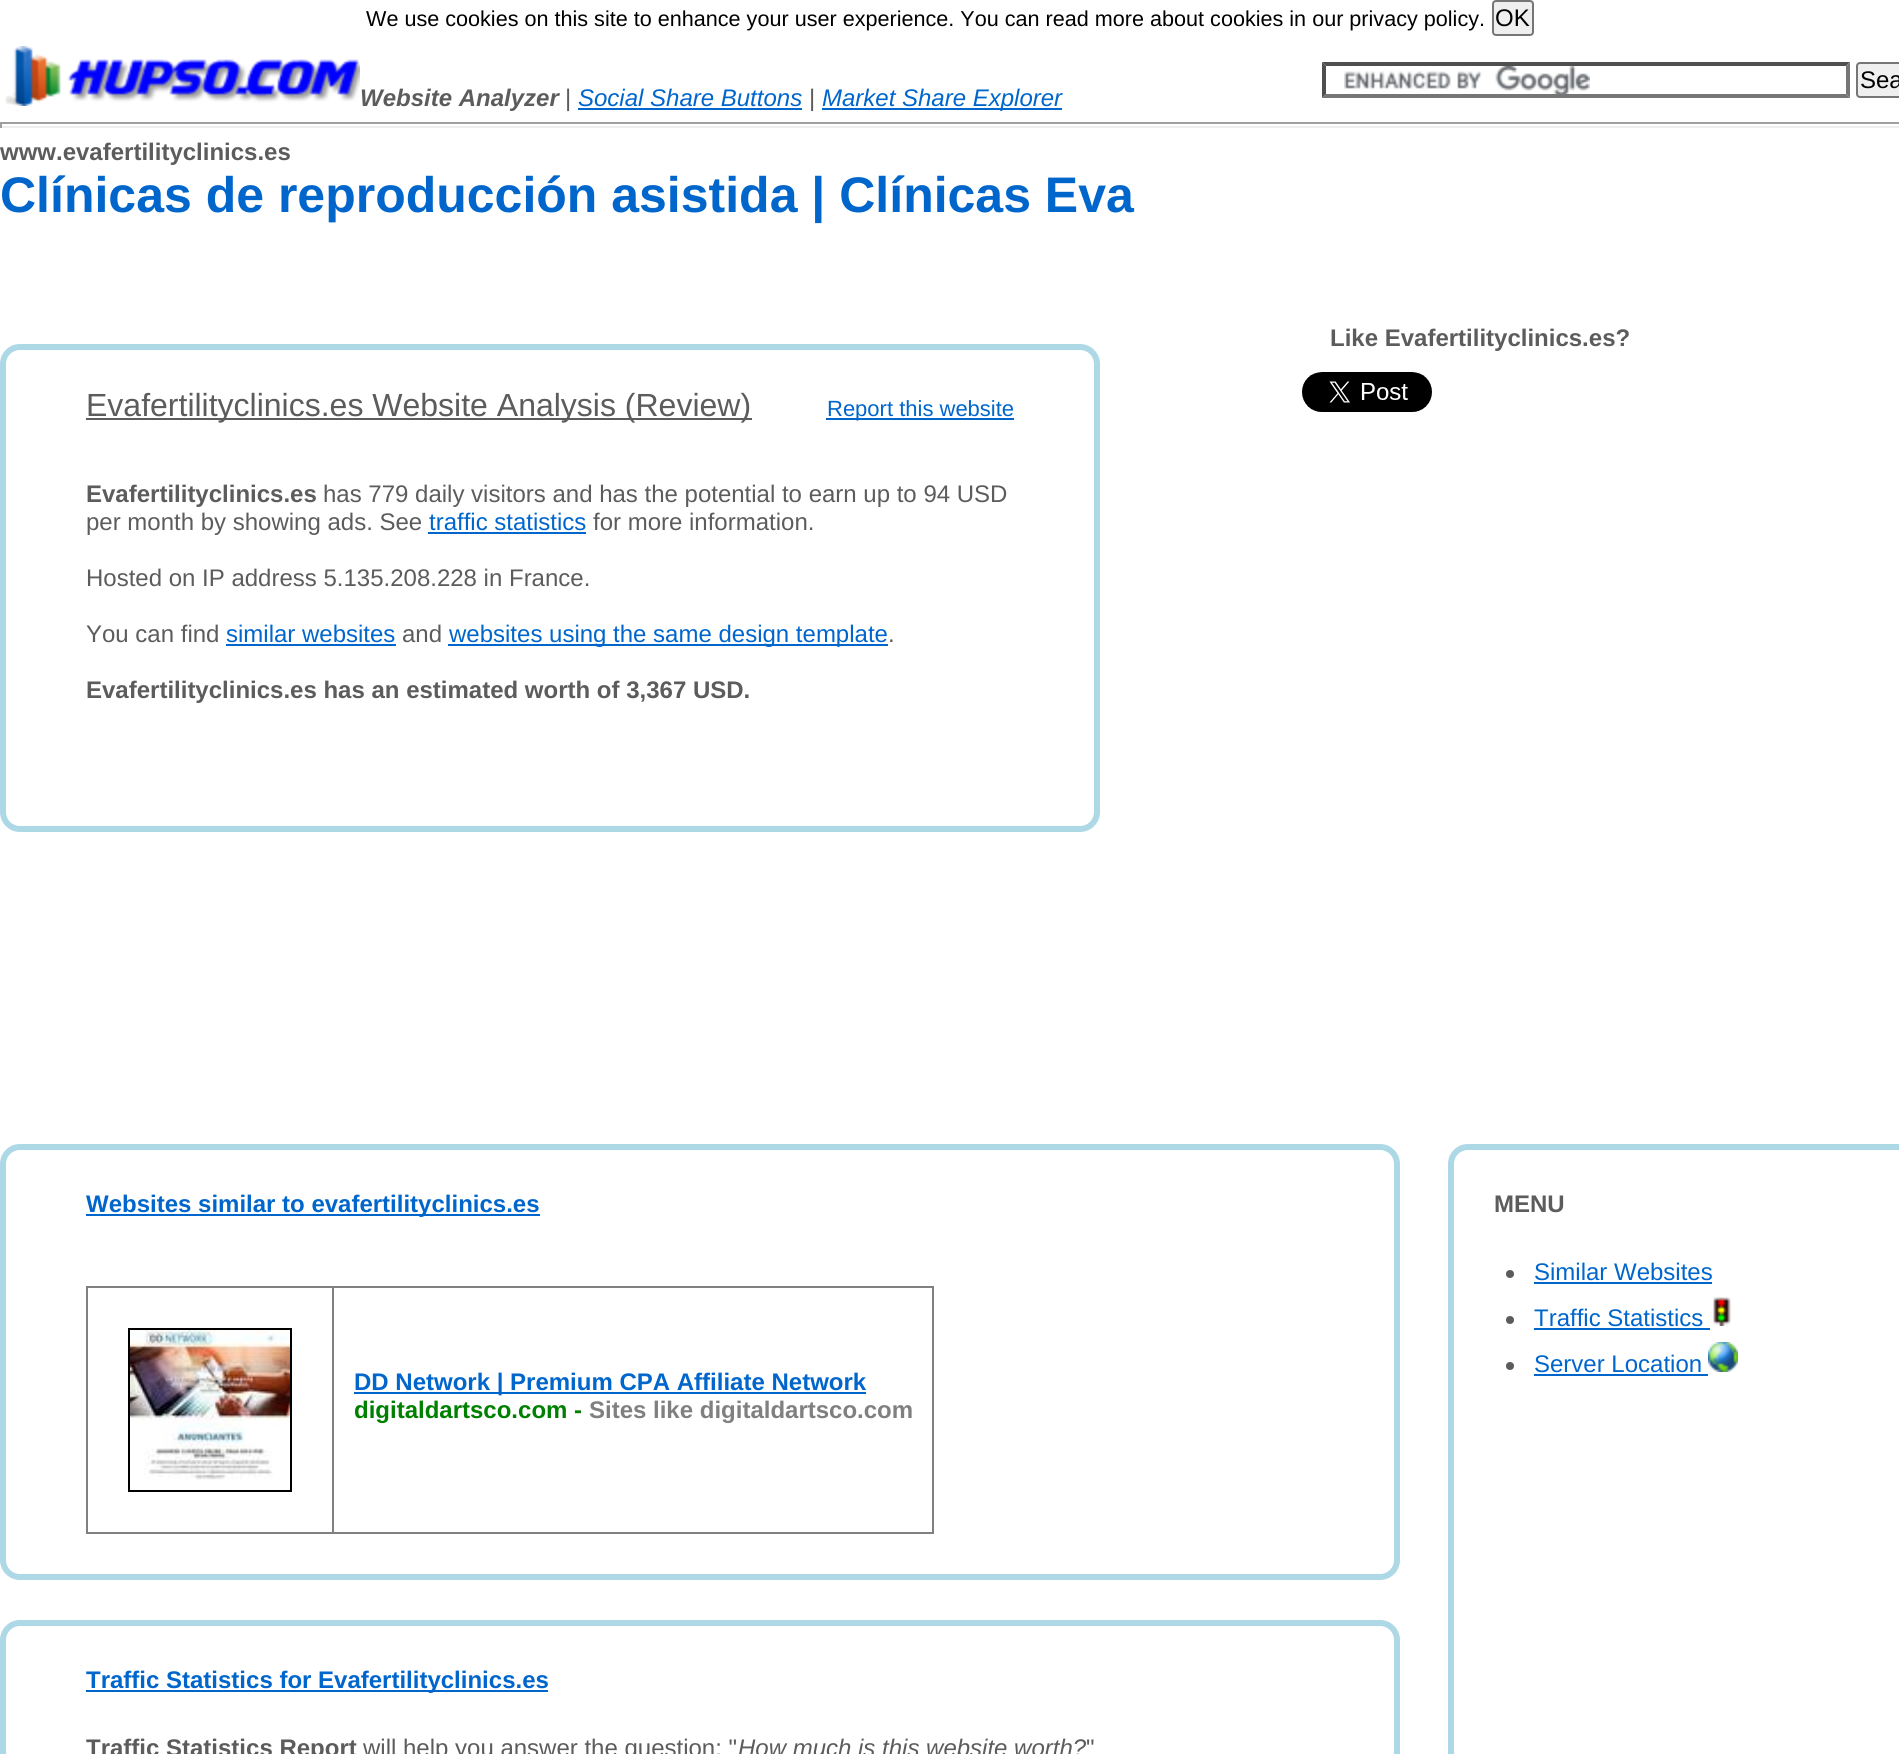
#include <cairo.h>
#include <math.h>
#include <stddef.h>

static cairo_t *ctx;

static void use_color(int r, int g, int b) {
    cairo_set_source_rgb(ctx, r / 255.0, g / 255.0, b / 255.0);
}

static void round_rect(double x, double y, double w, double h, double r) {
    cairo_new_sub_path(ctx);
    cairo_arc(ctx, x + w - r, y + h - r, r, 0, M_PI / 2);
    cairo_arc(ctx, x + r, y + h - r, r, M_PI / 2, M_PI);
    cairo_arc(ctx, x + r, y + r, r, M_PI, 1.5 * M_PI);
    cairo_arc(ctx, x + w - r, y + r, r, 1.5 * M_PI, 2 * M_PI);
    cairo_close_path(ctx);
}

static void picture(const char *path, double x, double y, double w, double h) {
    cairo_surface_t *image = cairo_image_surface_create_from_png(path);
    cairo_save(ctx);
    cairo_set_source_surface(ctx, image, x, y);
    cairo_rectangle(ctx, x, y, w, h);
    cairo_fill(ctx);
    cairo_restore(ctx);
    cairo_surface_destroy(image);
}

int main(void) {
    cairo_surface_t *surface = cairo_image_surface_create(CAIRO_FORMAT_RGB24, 1899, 1754);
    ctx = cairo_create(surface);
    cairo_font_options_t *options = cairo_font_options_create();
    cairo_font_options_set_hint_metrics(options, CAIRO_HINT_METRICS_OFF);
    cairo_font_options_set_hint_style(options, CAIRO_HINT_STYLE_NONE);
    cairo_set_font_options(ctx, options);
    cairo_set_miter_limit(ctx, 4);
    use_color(255, 255, 255);
    cairo_paint(ctx);
    cairo_select_font_face(ctx, "Liberation Sans", CAIRO_FONT_SLANT_NORMAL, CAIRO_FONT_WEIGHT_NORMAL);
    cairo_set_font_size(ctx, 21.6);
    use_color(0, 0, 0);
    cairo_move_to(ctx, 366, 26);
    cairo_show_text(ctx, "We use cookies on this site to enhance your user experience. You can read more about cookies in our privacy policy.");
    use_color(239, 239, 239);
    round_rect(1493, 1, 40, 34, 3);
    cairo_fill_preserve(ctx);
    use_color(118, 118, 118);
    cairo_stroke(ctx);
    cairo_set_font_size(ctx, 24);
    use_color(0, 0, 0);
    cairo_move_to(ctx, 1495, 26);
    cairo_show_text(ctx, "OK");
    picture("img1.png", 1344, 66, 246, 28);
    use_color(79, 79, 79);
    cairo_new_path(ctx);
    cairo_move_to(ctx, 1322, 62);
    cairo_line_to(ctx, 1850, 62);
    cairo_line_to(ctx, 1846, 66);
    cairo_line_to(ctx, 1326, 66);
    cairo_close_path(ctx);
    cairo_fill(ctx);
    use_color(118, 118, 118);
    cairo_new_path(ctx);
    cairo_move_to(ctx, 1850, 62);
    cairo_line_to(ctx, 1850, 98);
    cairo_line_to(ctx, 1846, 94);
    cairo_line_to(ctx, 1846, 66);
    cairo_close_path(ctx);
    cairo_fill(ctx);
    cairo_new_path(ctx);
    cairo_move_to(ctx, 1850, 98);
    cairo_line_to(ctx, 1322, 98);
    cairo_line_to(ctx, 1326, 94);
    cairo_line_to(ctx, 1846, 94);
    cairo_close_path(ctx);
    cairo_fill(ctx);
    use_color(79, 79, 79);
    cairo_new_path(ctx);
    cairo_move_to(ctx, 1322, 98);
    cairo_line_to(ctx, 1322, 62);
    cairo_line_to(ctx, 1326, 66);
    cairo_line_to(ctx, 1326, 94);
    cairo_close_path(ctx);
    cairo_fill(ctx);
    use_color(239, 239, 239);
    round_rect(1857, 63, 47, 34, 3);
    cairo_fill_preserve(ctx);
    use_color(118, 118, 118);
    cairo_stroke(ctx);
    use_color(0, 0, 0);
    cairo_move_to(ctx, 1860, 88);
    cairo_show_text(ctx, "Sea");
    picture("img2.png", 5, 46, 355, 60);
    cairo_select_font_face(ctx, "Liberation Sans", CAIRO_FONT_SLANT_ITALIC, CAIRO_FONT_WEIGHT_BOLD);
    use_color(92, 92, 92);
    cairo_move_to(ctx, 360, 106);
    cairo_show_text(ctx, "Website Analyzer");
    cairo_select_font_face(ctx, "Liberation Sans", CAIRO_FONT_SLANT_NORMAL, CAIRO_FONT_WEIGHT_NORMAL);
    cairo_move_to(ctx, 565, 106);
    cairo_show_text(ctx, "|");
    cairo_select_font_face(ctx, "Liberation Sans", CAIRO_FONT_SLANT_ITALIC, CAIRO_FONT_WEIGHT_NORMAL);
    use_color(0, 102, 204);
    cairo_move_to(ctx, 578, 106);
    cairo_show_text(ctx, "Social Share Buttons");
    cairo_rectangle(ctx, 578, 108, 224, 2);
    cairo_fill(ctx);
    cairo_select_font_face(ctx, "Liberation Sans", CAIRO_FONT_SLANT_NORMAL, CAIRO_FONT_WEIGHT_NORMAL);
    use_color(92, 92, 92);
    cairo_move_to(ctx, 809, 106);
    cairo_show_text(ctx, "|");
    use_color(0, 102, 204);
    cairo_rectangle(ctx, 822, 108, 240, 2);
    cairo_fill(ctx);
    cairo_select_font_face(ctx, "Liberation Sans", CAIRO_FONT_SLANT_ITALIC, CAIRO_FONT_WEIGHT_NORMAL);
    cairo_move_to(ctx, 822, 106);
    cairo_show_text(ctx, "Market Share Explorer");
    use_color(159, 159, 159);
    cairo_rectangle(ctx, 0, 122, 1899, 2);
    cairo_fill(ctx);
    use_color(238, 238, 238);
    cairo_rectangle(ctx, 0, 126, 1899, 2);
    cairo_fill(ctx);
    use_color(159, 159, 159);
    cairo_rectangle(ctx, 0, 122, 2, 6);
    cairo_fill(ctx);
    cairo_select_font_face(ctx, "Liberation Sans", CAIRO_FONT_SLANT_NORMAL, CAIRO_FONT_WEIGHT_BOLD);
    use_color(92, 92, 92);
    cairo_move_to(ctx, 0, 160);
    cairo_show_text(ctx, "www.evafertilityclinics.es");
    cairo_set_font_size(ctx, 50);
    use_color(0, 102, 204);
    cairo_move_to(ctx, 0, 212);
    cairo_show_text(ctx, "Clínicas de reproducción asistida | Clínicas Eva");
    cairo_set_font_size(ctx, 24);
    use_color(92, 92, 92);
    cairo_move_to(ctx, 1330, 346);
    cairo_show_text(ctx, "Like Evafertilityclinics.es?");
    picture("img3.png", 1302, 372, 130, 40);
    round_rect(3, 347, 1094, 482, 17);
    use_color(173, 216, 230);
    cairo_set_line_width(ctx, 6);
    cairo_stroke(ctx);
    use_color(92, 92, 92);
    cairo_rectangle(ctx, 86, 418, 666, 2);
    cairo_fill(ctx);
    cairo_select_font_face(ctx, "Liberation Sans", CAIRO_FONT_SLANT_NORMAL, CAIRO_FONT_WEIGHT_NORMAL);
    cairo_set_font_size(ctx, 32);
    cairo_move_to(ctx, 86, 416);
    cairo_show_text(ctx, "Evafertilityclinics.es Website Analysis (Review)");
    use_color(0, 102, 204);
    cairo_rectangle(ctx, 826, 418, 188, 2);
    cairo_fill(ctx);
    cairo_set_font_size(ctx, 22);
    cairo_move_to(ctx, 827, 416);
    cairo_show_text(ctx, "Report this website");
    cairo_select_font_face(ctx, "Liberation Sans", CAIRO_FONT_SLANT_NORMAL, CAIRO_FONT_WEIGHT_BOLD);
    cairo_set_font_size(ctx, 24);
    use_color(92, 92, 92);
    cairo_move_to(ctx, 86, 502);
    cairo_show_text(ctx, "Evafertilityclinics.es");
    cairo_select_font_face(ctx, "Liberation Sans", CAIRO_FONT_SLANT_NORMAL, CAIRO_FONT_WEIGHT_NORMAL);
    cairo_move_to(ctx, 323, 502);
    cairo_show_text(ctx, "has 779 daily visitors and has the potential to earn up to 94 USD");
    cairo_move_to(ctx, 86, 530);
    cairo_show_text(ctx, "per month by showing ads. See");
    use_color(0, 102, 204);
    cairo_move_to(ctx, 429, 530);
    cairo_show_text(ctx, "traffic statistics");
    cairo_rectangle(ctx, 428, 532, 158, 2);
    cairo_fill(ctx);
    use_color(92, 92, 92);
    cairo_move_to(ctx, 593, 530);
    cairo_show_text(ctx, "for more information.");
    cairo_move_to(ctx, 86, 586);
    cairo_show_text(ctx, "Hosted on IP address 5.135.208.228 in France.");
    cairo_move_to(ctx, 86, 642);
    cairo_show_text(ctx, "You can find");
    use_color(0, 102, 204);
    cairo_move_to(ctx, 226, 642);
    cairo_show_text(ctx, "similar websites");
    cairo_rectangle(ctx, 226, 644, 170, 2);
    cairo_fill(ctx);
    use_color(92, 92, 92);
    cairo_move_to(ctx, 402, 642);
    cairo_show_text(ctx, "and");
    use_color(0, 102, 204);
    cairo_rectangle(ctx, 448, 644, 440, 2);
    cairo_fill(ctx);
    cairo_move_to(ctx, 449, 642);
    cairo_show_text(ctx, "websites using the same design template");
    use_color(92, 92, 92);
    cairo_move_to(ctx, 888, 642);
    cairo_show_text(ctx, ".");
    cairo_select_font_face(ctx, "Liberation Sans", CAIRO_FONT_SLANT_NORMAL, CAIRO_FONT_WEIGHT_BOLD);
    cairo_move_to(ctx, 86, 698);
    cairo_show_text(ctx, "Evafertilityclinics.es has an estimated worth of 3,367 USD.");
    round_rect(3, 1147, 1394, 430, 17);
    use_color(173, 216, 230);
    cairo_stroke(ctx);
    use_color(0, 102, 204);
    cairo_rectangle(ctx, 86, 1214, 454, 2);
    cairo_fill(ctx);
    cairo_move_to(ctx, 86, 1212);
    cairo_show_text(ctx, "Websites similar to evafertilityclinics.es");
    use_color(128, 128, 128);
    cairo_rectangle(ctx, 86, 1286, 848, 2);
    cairo_fill(ctx);
    cairo_rectangle(ctx, 932, 1286, 2, 248);
    cairo_fill(ctx);
    cairo_rectangle(ctx, 86, 1532, 848, 2);
    cairo_fill(ctx);
    cairo_rectangle(ctx, 86, 1286, 2, 248);
    cairo_fill(ctx);
    cairo_rectangle(ctx, 129, 1329, 162, 162);
    use_color(0, 0, 0);
    cairo_set_line_width(ctx, 2);
    cairo_stroke(ctx);
    picture("img4.png", 130, 1330, 160, 150);
    use_color(128, 128, 128);
    cairo_rectangle(ctx, 332, 1286, 2, 248);
    cairo_fill(ctx);
    use_color(0, 102, 204);
    cairo_rectangle(ctx, 354, 1392, 512, 2);
    cairo_fill(ctx);
    cairo_move_to(ctx, 354, 1390);
    cairo_show_text(ctx, "DD Network | Premium CPA Affiliate Network");
    use_color(0, 128, 0);
    cairo_move_to(ctx, 354, 1418);
    cairo_show_text(ctx, "digitaldartsco.com -");
    use_color(128, 128, 128);
    cairo_move_to(ctx, 589, 1418);
    cairo_show_text(ctx, "Sites like digitaldartsco.com");
    round_rect(3, 1623, 1394, 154, 17);
    use_color(173, 216, 230);
    cairo_set_line_width(ctx, 6);
    cairo_stroke(ctx);
    use_color(0, 102, 204);
    cairo_rectangle(ctx, 86, 1690, 462, 2);
    cairo_fill(ctx);
    cairo_move_to(ctx, 86, 1688);
    cairo_show_text(ctx, "Traffic Statistics for Evafertilityclinics.es");
    use_color(92, 92, 92);
    cairo_move_to(ctx, 86, 1756);
    cairo_show_text(ctx, "Traffic Statistics Report");
    cairo_select_font_face(ctx, "Liberation Sans", CAIRO_FONT_SLANT_NORMAL, CAIRO_FONT_WEIGHT_NORMAL);
    cairo_move_to(ctx, 363, 1756);
    cairo_show_text(ctx, "will help you answer the question: \"");
    cairo_select_font_face(ctx, "Liberation Sans", CAIRO_FONT_SLANT_ITALIC, CAIRO_FONT_WEIGHT_NORMAL);
    cairo_move_to(ctx, 738, 1756);
    cairo_show_text(ctx, "How much is this website worth?");
    cairo_select_font_face(ctx, "Liberation Sans", CAIRO_FONT_SLANT_NORMAL, CAIRO_FONT_WEIGHT_NORMAL);
    cairo_move_to(ctx, 1086, 1756);
    cairo_show_text(ctx, "\"");
    round_rect(1451, 1147, 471, 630, 17);
    use_color(173, 216, 230);
    cairo_stroke(ctx);
    cairo_select_font_face(ctx, "Liberation Sans", CAIRO_FONT_SLANT_NORMAL, CAIRO_FONT_WEIGHT_BOLD);
    use_color(92, 92, 92);
    cairo_move_to(ctx, 1494, 1212);
    cairo_show_text(ctx, "MENU");
    cairo_new_path(ctx);
    cairo_arc(ctx, 1510, 1274, 4, 0, 2 * M_PI);
    cairo_fill(ctx);
    cairo_select_font_face(ctx, "Liberation Sans", CAIRO_FONT_SLANT_NORMAL, CAIRO_FONT_WEIGHT_NORMAL);
    use_color(0, 102, 204);
    cairo_move_to(ctx, 1534, 1280);
    cairo_show_text(ctx, "Similar Websites");
    cairo_rectangle(ctx, 1534, 1282, 178, 2);
    cairo_fill(ctx);
    use_color(92, 92, 92);
    cairo_arc(ctx, 1510, 1320, 4, 0, 2 * M_PI);
    cairo_fill(ctx);
    use_color(0, 102, 204);
    cairo_move_to(ctx, 1534, 1326);
    cairo_show_text(ctx, "Traffic Statistics");
    cairo_rectangle(ctx, 1534, 1328, 176, 2);
    cairo_fill(ctx);
    picture("img5.png", 1713, 1297, 18, 29);
    use_color(92, 92, 92);
    cairo_arc(ctx, 1510, 1366, 4, 0, 2 * M_PI);
    cairo_fill(ctx);
    use_color(0, 102, 204);
    cairo_move_to(ctx, 1534, 1372);
    cairo_show_text(ctx, "Server Location");
    cairo_rectangle(ctx, 1534, 1374, 174, 2);
    cairo_fill(ctx);
    picture("img6.png", 1708, 1342, 30, 30);
    cairo_surface_write_to_png(surface, "result.png");
    cairo_font_options_destroy(options);
    cairo_destroy(ctx);
    cairo_surface_destroy(surface);
    return 0;
}
